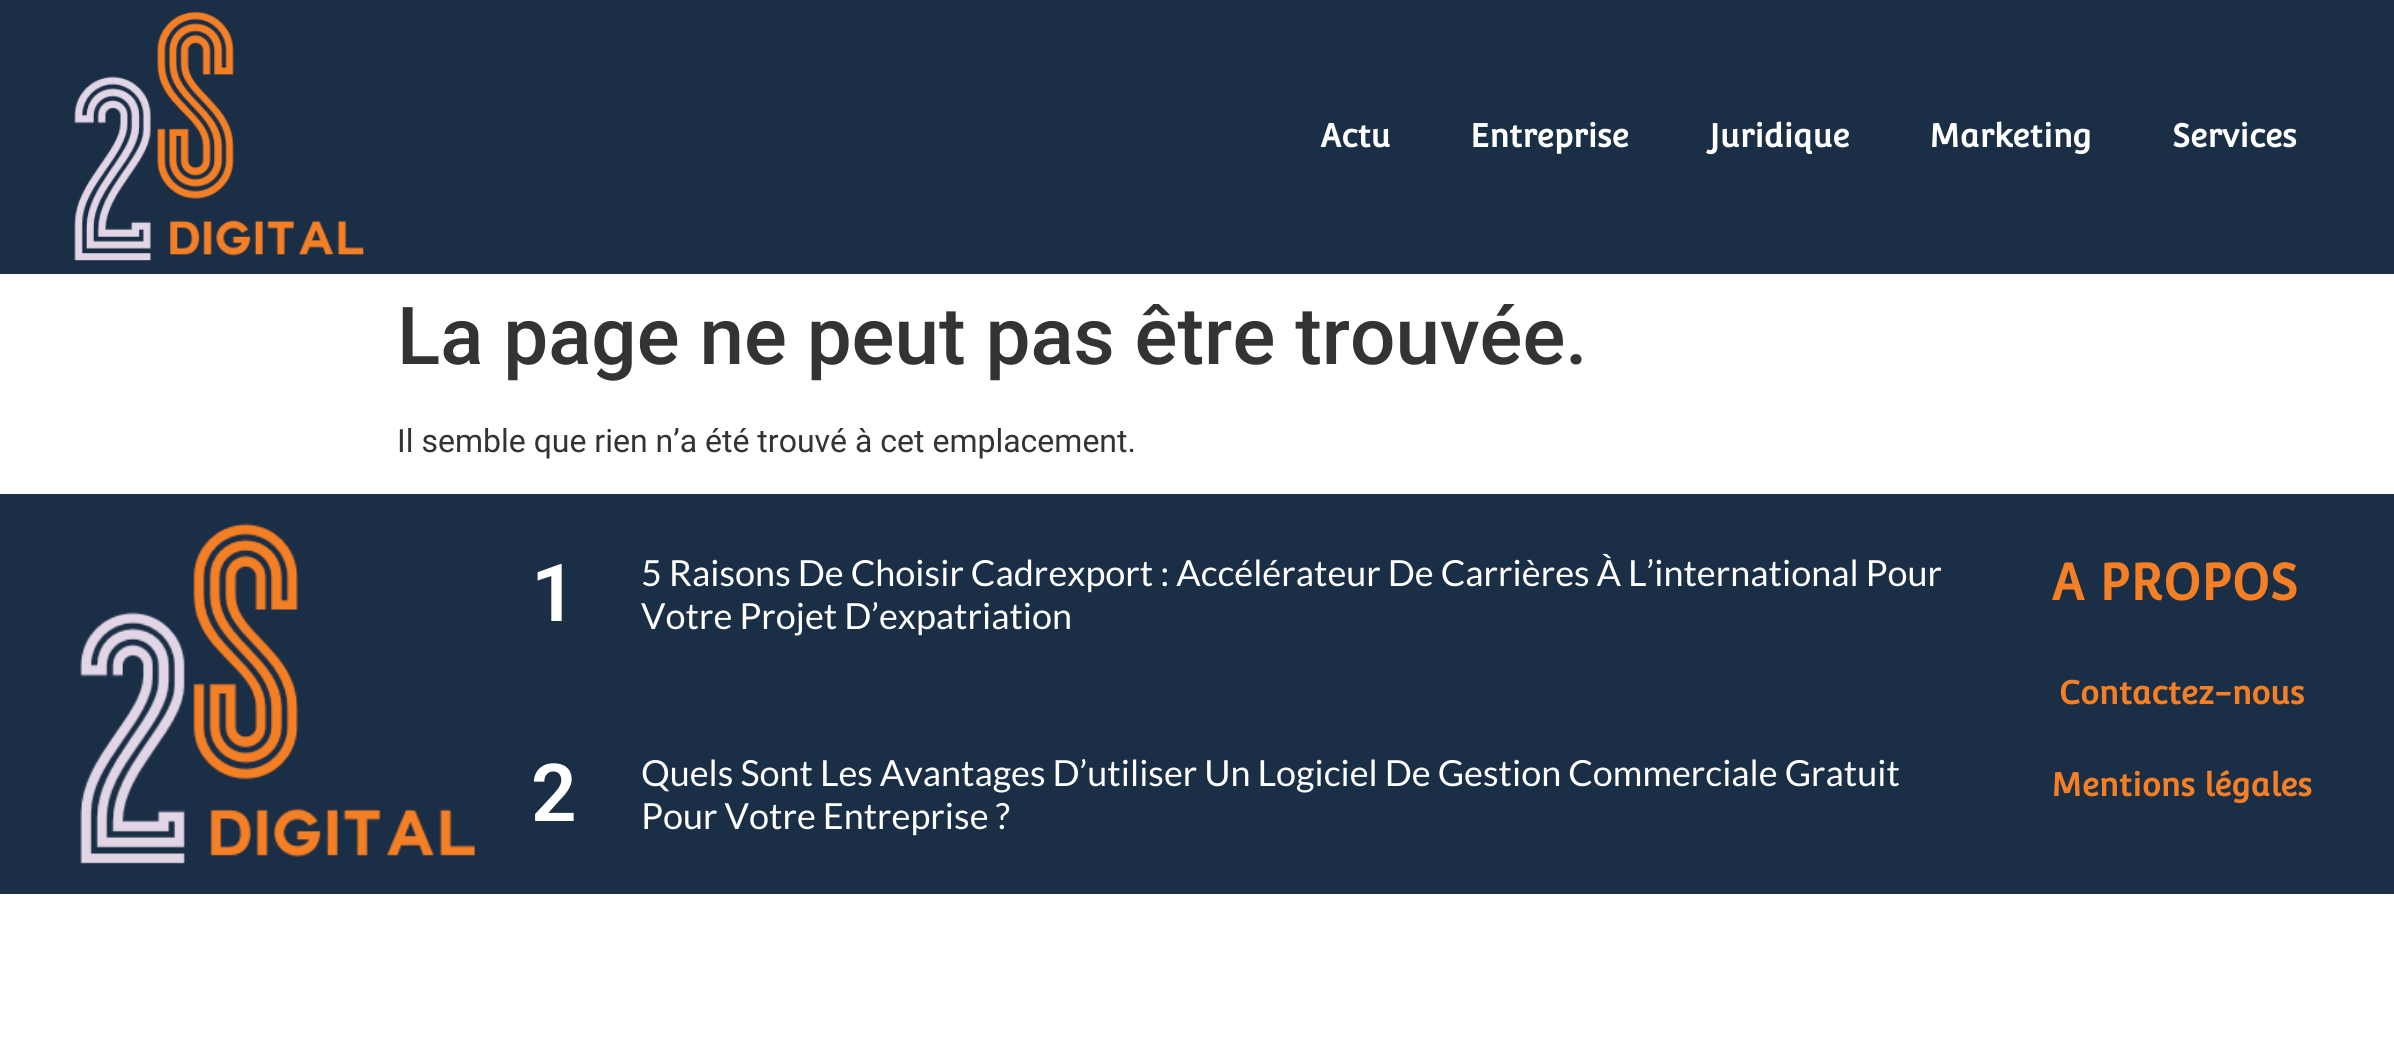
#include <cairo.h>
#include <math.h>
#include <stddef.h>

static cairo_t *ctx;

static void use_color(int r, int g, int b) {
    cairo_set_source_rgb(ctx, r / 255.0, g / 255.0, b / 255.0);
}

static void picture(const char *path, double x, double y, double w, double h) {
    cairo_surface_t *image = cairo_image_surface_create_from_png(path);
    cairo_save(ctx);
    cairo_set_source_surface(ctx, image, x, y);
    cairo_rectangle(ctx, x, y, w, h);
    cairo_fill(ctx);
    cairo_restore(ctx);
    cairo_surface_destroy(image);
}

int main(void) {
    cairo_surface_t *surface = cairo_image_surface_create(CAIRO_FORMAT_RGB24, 2394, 1048);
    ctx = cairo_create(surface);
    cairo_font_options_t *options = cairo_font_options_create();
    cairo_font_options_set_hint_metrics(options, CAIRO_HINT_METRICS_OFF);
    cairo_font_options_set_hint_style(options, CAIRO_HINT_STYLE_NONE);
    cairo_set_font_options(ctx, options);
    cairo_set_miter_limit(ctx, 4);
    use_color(255, 255, 255);
    cairo_paint(ctx);
    use_color(26, 46, 70);
    cairo_rectangle(ctx, 0, 0, 2394, 274);
    cairo_fill(ctx);
    picture("img1.png", 74, 11, 290, 250);
    cairo_select_font_face(ctx, "Convergence", CAIRO_FONT_SLANT_NORMAL, CAIRO_FONT_WEIGHT_BOLD);
    cairo_set_font_size(ctx, 32);
    use_color(255, 255, 255);
    cairo_move_to(ctx, 1320, 147);
    cairo_show_text(ctx, "Actu");
    cairo_move_to(ctx, 1470, 147);
    cairo_show_text(ctx, "Entreprise");
    cairo_move_to(ctx, 1709, 147);
    cairo_show_text(ctx, "Juridique");
    cairo_move_to(ctx, 1929, 147);
    cairo_show_text(ctx, "Marketing");
    cairo_move_to(ctx, 2172, 147);
    cairo_show_text(ctx, "Services");
    cairo_select_font_face(ctx, "Roboto Medium", CAIRO_FONT_SLANT_NORMAL, CAIRO_FONT_WEIGHT_NORMAL);
    cairo_set_font_size(ctx, 80);
    use_color(51, 51, 51);
    cairo_move_to(ctx, 397, 364);
    cairo_show_text(ctx, "La page ne peut pas être trouvée.");
    cairo_select_font_face(ctx, "Roboto", CAIRO_FONT_SLANT_NORMAL, CAIRO_FONT_WEIGHT_NORMAL);
    cairo_set_font_size(ctx, 32);
    cairo_move_to(ctx, 397, 452);
    cairo_show_text(ctx, "Il semble que rien n’a été trouvé à cet emplacement.");
    use_color(26, 46, 70);
    cairo_rectangle(ctx, 0, 494, 2394, 400);
    cairo_fill(ctx);
    picture("img2.png", 80, 523, 395, 341);
    cairo_select_font_face(ctx, "Roboto SemiBold", CAIRO_FONT_SLANT_NORMAL, CAIRO_FONT_WEIGHT_NORMAL);
    cairo_set_font_size(ctx, 80);
    use_color(255, 255, 255);
    cairo_move_to(ctx, 531, 621);
    cairo_show_text(ctx, "1");
    cairo_select_font_face(ctx, "Lato", CAIRO_FONT_SLANT_NORMAL, CAIRO_FONT_WEIGHT_NORMAL);
    cairo_set_font_size(ctx, 36);
    cairo_move_to(ctx, 641, 586);
    cairo_show_text(ctx, "5 Raisons De Choisir Cadrexport : Accélérateur De Carrières À L’international Pour");
    cairo_move_to(ctx, 641, 629);
    cairo_show_text(ctx, "Votre Projet D’expatriation");
    cairo_select_font_face(ctx, "Roboto SemiBold", CAIRO_FONT_SLANT_NORMAL, CAIRO_FONT_WEIGHT_NORMAL);
    cairo_set_font_size(ctx, 80);
    cairo_move_to(ctx, 531, 821);
    cairo_show_text(ctx, "2");
    cairo_select_font_face(ctx, "Lato", CAIRO_FONT_SLANT_NORMAL, CAIRO_FONT_WEIGHT_NORMAL);
    cairo_set_font_size(ctx, 36);
    cairo_move_to(ctx, 641, 786);
    cairo_show_text(ctx, "Quels Sont Les Avantages D’utiliser Un Logiciel De Gestion Commerciale Gratuit");
    cairo_move_to(ctx, 641, 829);
    cairo_show_text(ctx, "Pour Votre Entreprise ?");
    cairo_select_font_face(ctx, "Convergence", CAIRO_FONT_SLANT_NORMAL, CAIRO_FONT_WEIGHT_BOLD);
    cairo_set_font_size(ctx, 50);
    use_color(245, 127, 37);
    cairo_move_to(ctx, 2051, 600);
    cairo_show_text(ctx, "A PROPOS");
    cairo_set_font_size(ctx, 32);
    cairo_move_to(ctx, 2059, 704);
    cairo_show_text(ctx, "Contactez-nous");
    cairo_move_to(ctx, 2051, 796);
    cairo_show_text(ctx, "Mentions légales");
    cairo_surface_write_to_png(surface, "result.png");
    cairo_font_options_destroy(options);
    cairo_destroy(ctx);
    cairo_surface_destroy(surface);
    return 0;
}
